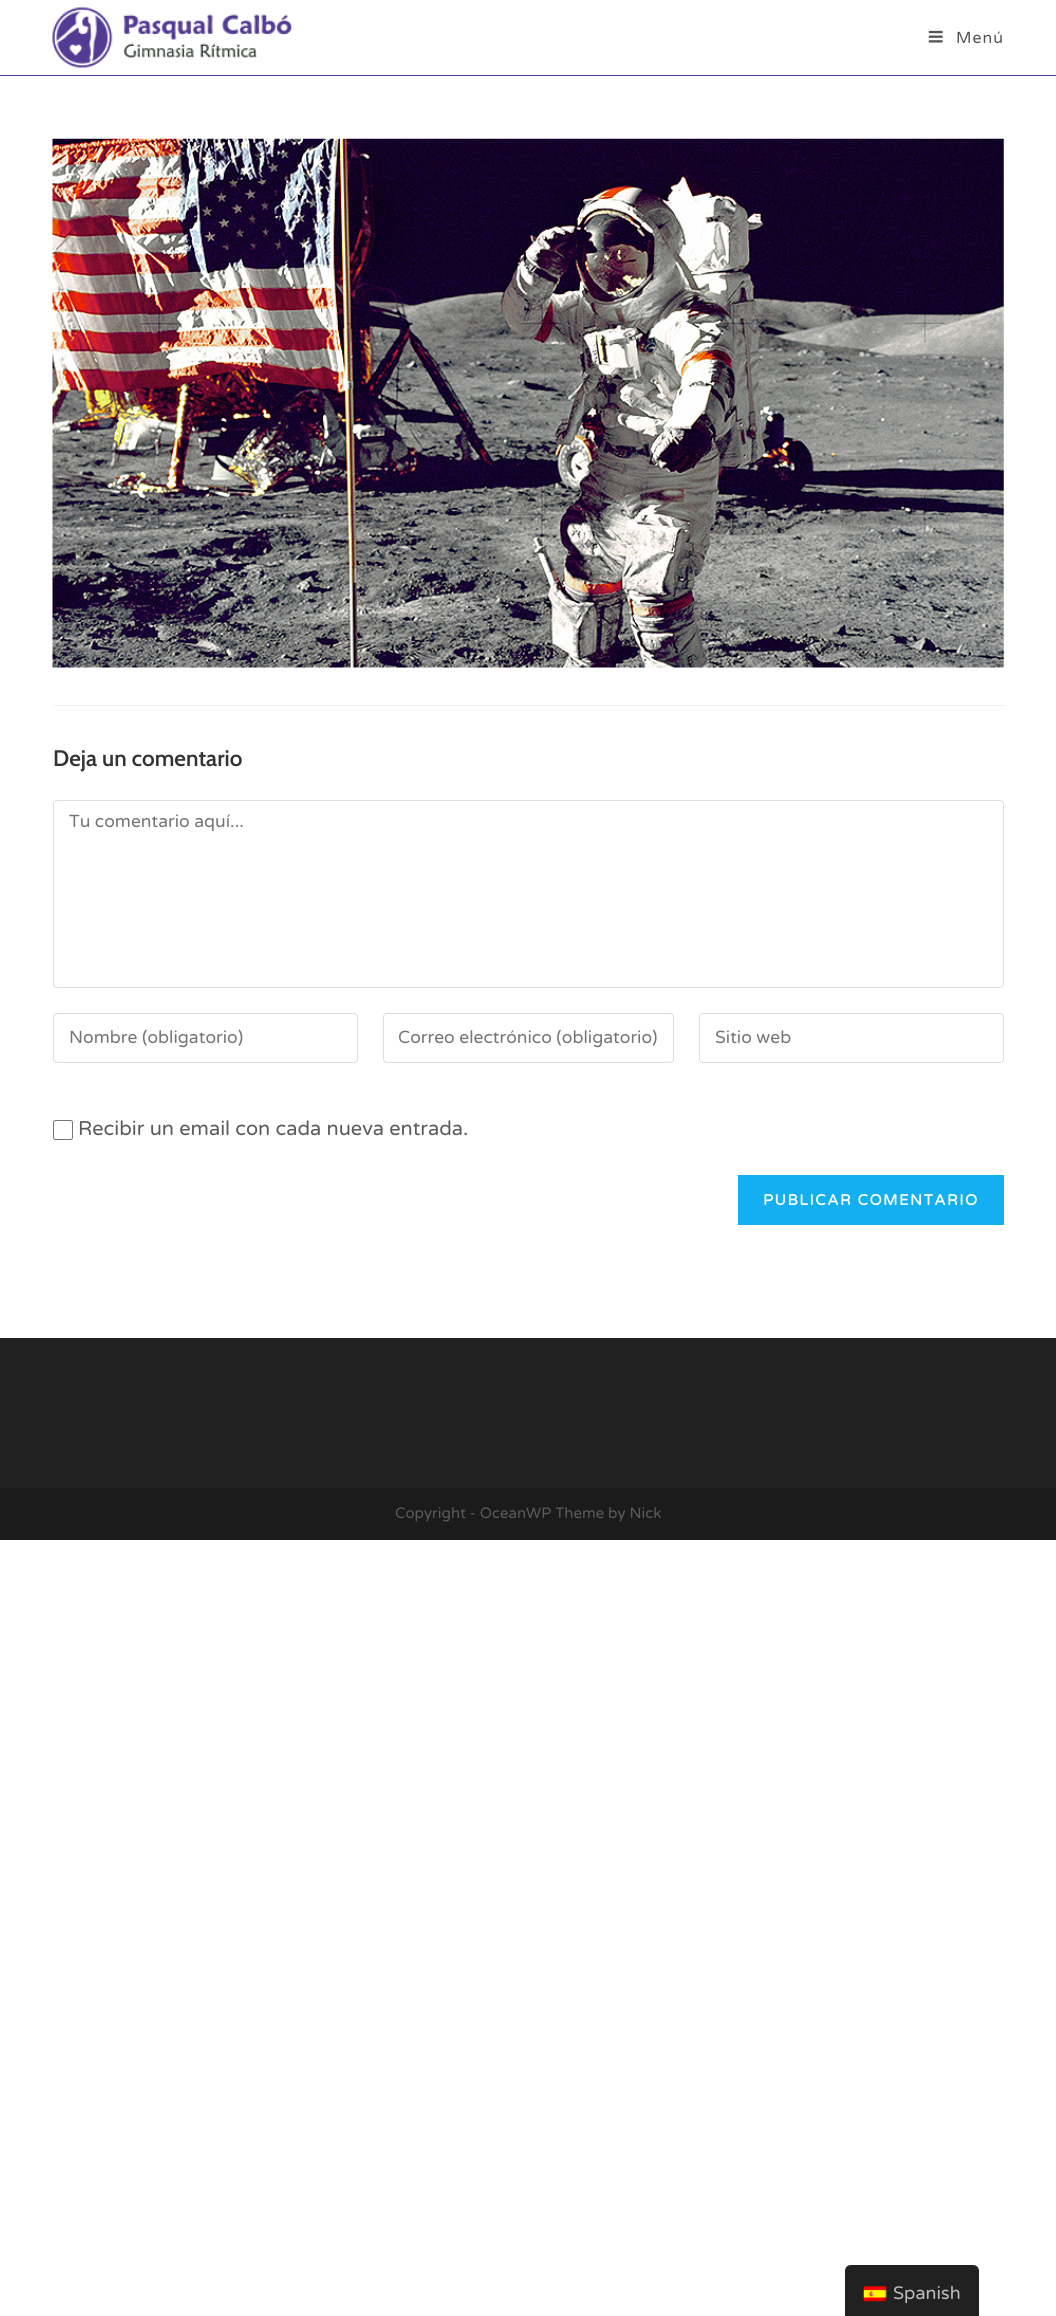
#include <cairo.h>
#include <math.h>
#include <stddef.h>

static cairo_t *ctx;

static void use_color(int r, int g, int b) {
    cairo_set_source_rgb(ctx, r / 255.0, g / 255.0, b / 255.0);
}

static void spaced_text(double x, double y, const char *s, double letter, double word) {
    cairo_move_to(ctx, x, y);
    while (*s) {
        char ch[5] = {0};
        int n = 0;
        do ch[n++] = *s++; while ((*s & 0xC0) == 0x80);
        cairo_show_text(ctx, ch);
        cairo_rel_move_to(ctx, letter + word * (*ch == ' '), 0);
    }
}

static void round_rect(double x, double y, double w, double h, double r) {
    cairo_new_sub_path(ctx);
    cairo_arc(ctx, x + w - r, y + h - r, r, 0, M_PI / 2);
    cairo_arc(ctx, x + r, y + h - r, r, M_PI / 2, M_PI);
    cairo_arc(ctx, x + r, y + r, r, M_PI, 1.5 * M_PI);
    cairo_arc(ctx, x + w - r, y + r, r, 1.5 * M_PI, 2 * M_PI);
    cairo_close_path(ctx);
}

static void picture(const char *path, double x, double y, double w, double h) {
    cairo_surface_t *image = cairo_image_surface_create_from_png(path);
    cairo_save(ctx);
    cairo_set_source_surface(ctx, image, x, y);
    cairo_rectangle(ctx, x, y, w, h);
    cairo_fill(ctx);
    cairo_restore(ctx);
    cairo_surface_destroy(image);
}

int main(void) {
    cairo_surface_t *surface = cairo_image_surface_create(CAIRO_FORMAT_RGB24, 1056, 2316);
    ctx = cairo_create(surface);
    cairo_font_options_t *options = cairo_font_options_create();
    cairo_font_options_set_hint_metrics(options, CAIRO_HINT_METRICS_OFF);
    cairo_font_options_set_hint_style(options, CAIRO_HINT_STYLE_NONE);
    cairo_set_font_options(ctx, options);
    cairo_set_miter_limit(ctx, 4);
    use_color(255, 255, 255);
    cairo_paint(ctx);
    use_color(83, 58, 147);
    cairo_rectangle(ctx, 0, 75, 1056, 1);
    cairo_fill(ctx);
    picture("img1.png", 52, 7, 240, 61);
    picture("img2.png", 928, 30, 15, 13);
    cairo_select_font_face(ctx, "Varela Round", CAIRO_FONT_SLANT_NORMAL, CAIRO_FONT_WEIGHT_NORMAL);
    cairo_set_font_size(ctx, 16);
    use_color(85, 85, 85);
    spaced_text(956, 43, "Menú", 1, 0);
    picture("img3.png", 52, 138, 952, 530);
    use_color(241, 241, 241);
    cairo_rectangle(ctx, 53, 705, 951, 1);
    cairo_fill(ctx);
    cairo_select_font_face(ctx, "Cabin SemiBold", CAIRO_FONT_SLANT_NORMAL, CAIRO_FONT_WEIGHT_NORMAL);
    cairo_set_font_size(ctx, 22.5);
    use_color(51, 51, 51);
    cairo_move_to(ctx, 53, 766);
    cairo_show_text(ctx, "Deja un comentario");
    round_rect(53.5, 800.5, 950, 187, 3.5);
    use_color(221, 221, 221);
    cairo_set_line_width(ctx, 1);
    cairo_stroke(ctx);
    cairo_select_font_face(ctx, "Varela Round", CAIRO_FONT_SLANT_NORMAL, CAIRO_FONT_WEIGHT_NORMAL);
    cairo_set_font_size(ctx, 17.5);
    use_color(117, 117, 117);
    cairo_move_to(ctx, 69, 827);
    cairo_show_text(ctx, "Tu comentario aquí...");
    round_rect(53.5, 1013.5, 304, 49, 3.5);
    use_color(221, 221, 221);
    cairo_stroke(ctx);
    use_color(117, 117, 117);
    cairo_move_to(ctx, 69, 1043);
    cairo_show_text(ctx, "Nombre (obligatorio)");
    round_rect(383.5, 1013.5, 290, 49, 3.5);
    use_color(221, 221, 221);
    cairo_stroke(ctx);
    use_color(117, 117, 117);
    cairo_move_to(ctx, 398, 1043);
    cairo_show_text(ctx, "Correo electrónico (obligatorio)");
    round_rect(699.5, 1013.5, 304, 49, 3.5);
    use_color(221, 221, 221);
    cairo_stroke(ctx);
    use_color(117, 117, 117);
    cairo_move_to(ctx, 715, 1043);
    cairo_show_text(ctx, "Sitio web");
    round_rect(53.5, 1120.5, 19, 19, 2);
    use_color(118, 118, 118);
    cairo_stroke(ctx);
    cairo_set_font_size(ctx, 20);
    use_color(91, 91, 91);
    cairo_move_to(ctx, 78, 1135);
    cairo_show_text(ctx, "Recibir un email con cada nueva entrada.");
    use_color(19, 175, 240);
    cairo_rectangle(ctx, 738, 1175, 266, 50);
    cairo_fill(ctx);
    cairo_select_font_face(ctx, "Varela Round", CAIRO_FONT_SLANT_NORMAL, CAIRO_FONT_WEIGHT_BOLD);
    cairo_set_font_size(ctx, 15);
    use_color(255, 255, 255);
    spaced_text(763, 1205, "PUBLICAR COMENTARIO", 1.5, 0);
    use_color(34, 34, 34);
    cairo_rectangle(ctx, 0, 1338, 1056, 150);
    cairo_fill(ctx);
    use_color(27, 27, 27);
    cairo_rectangle(ctx, 0, 1488, 1056, 52);
    cairo_fill(ctx);
    cairo_select_font_face(ctx, "Varela Round", CAIRO_FONT_SLANT_NORMAL, CAIRO_FONT_WEIGHT_NORMAL);
    use_color(91, 91, 91);
    cairo_move_to(ctx, 395, 1518);
    cairo_show_text(ctx, "Copyright - OceanWP Theme by Nick");
    use_color(33, 33, 33);
    cairo_new_path(ctx);
    cairo_move_to(ctx, 851, 2265);
    cairo_line_to(ctx, 973, 2265);
    cairo_curve_to(ctx, 976.5, 2265, 979, 2267.5, 979, 2271);
    cairo_line_to(ctx, 979, 2316);
    cairo_line_to(ctx, 845, 2316);
    cairo_line_to(ctx, 845, 2271);
    cairo_curve_to(ctx, 845, 2267.5, 847.5, 2265, 851, 2265);
    cairo_close_path(ctx);
    cairo_fill(ctx);
    picture("img4.png", 863, 2286, 24, 16);
    cairo_set_font_size(ctx, 18);
    use_color(189, 189, 189);
    cairo_move_to(ctx, 893, 2299);
    cairo_show_text(ctx, "Spanish");
    cairo_surface_write_to_png(surface, "result.png");
    cairo_font_options_destroy(options);
    cairo_destroy(ctx);
    cairo_surface_destroy(surface);
    return 0;
}
